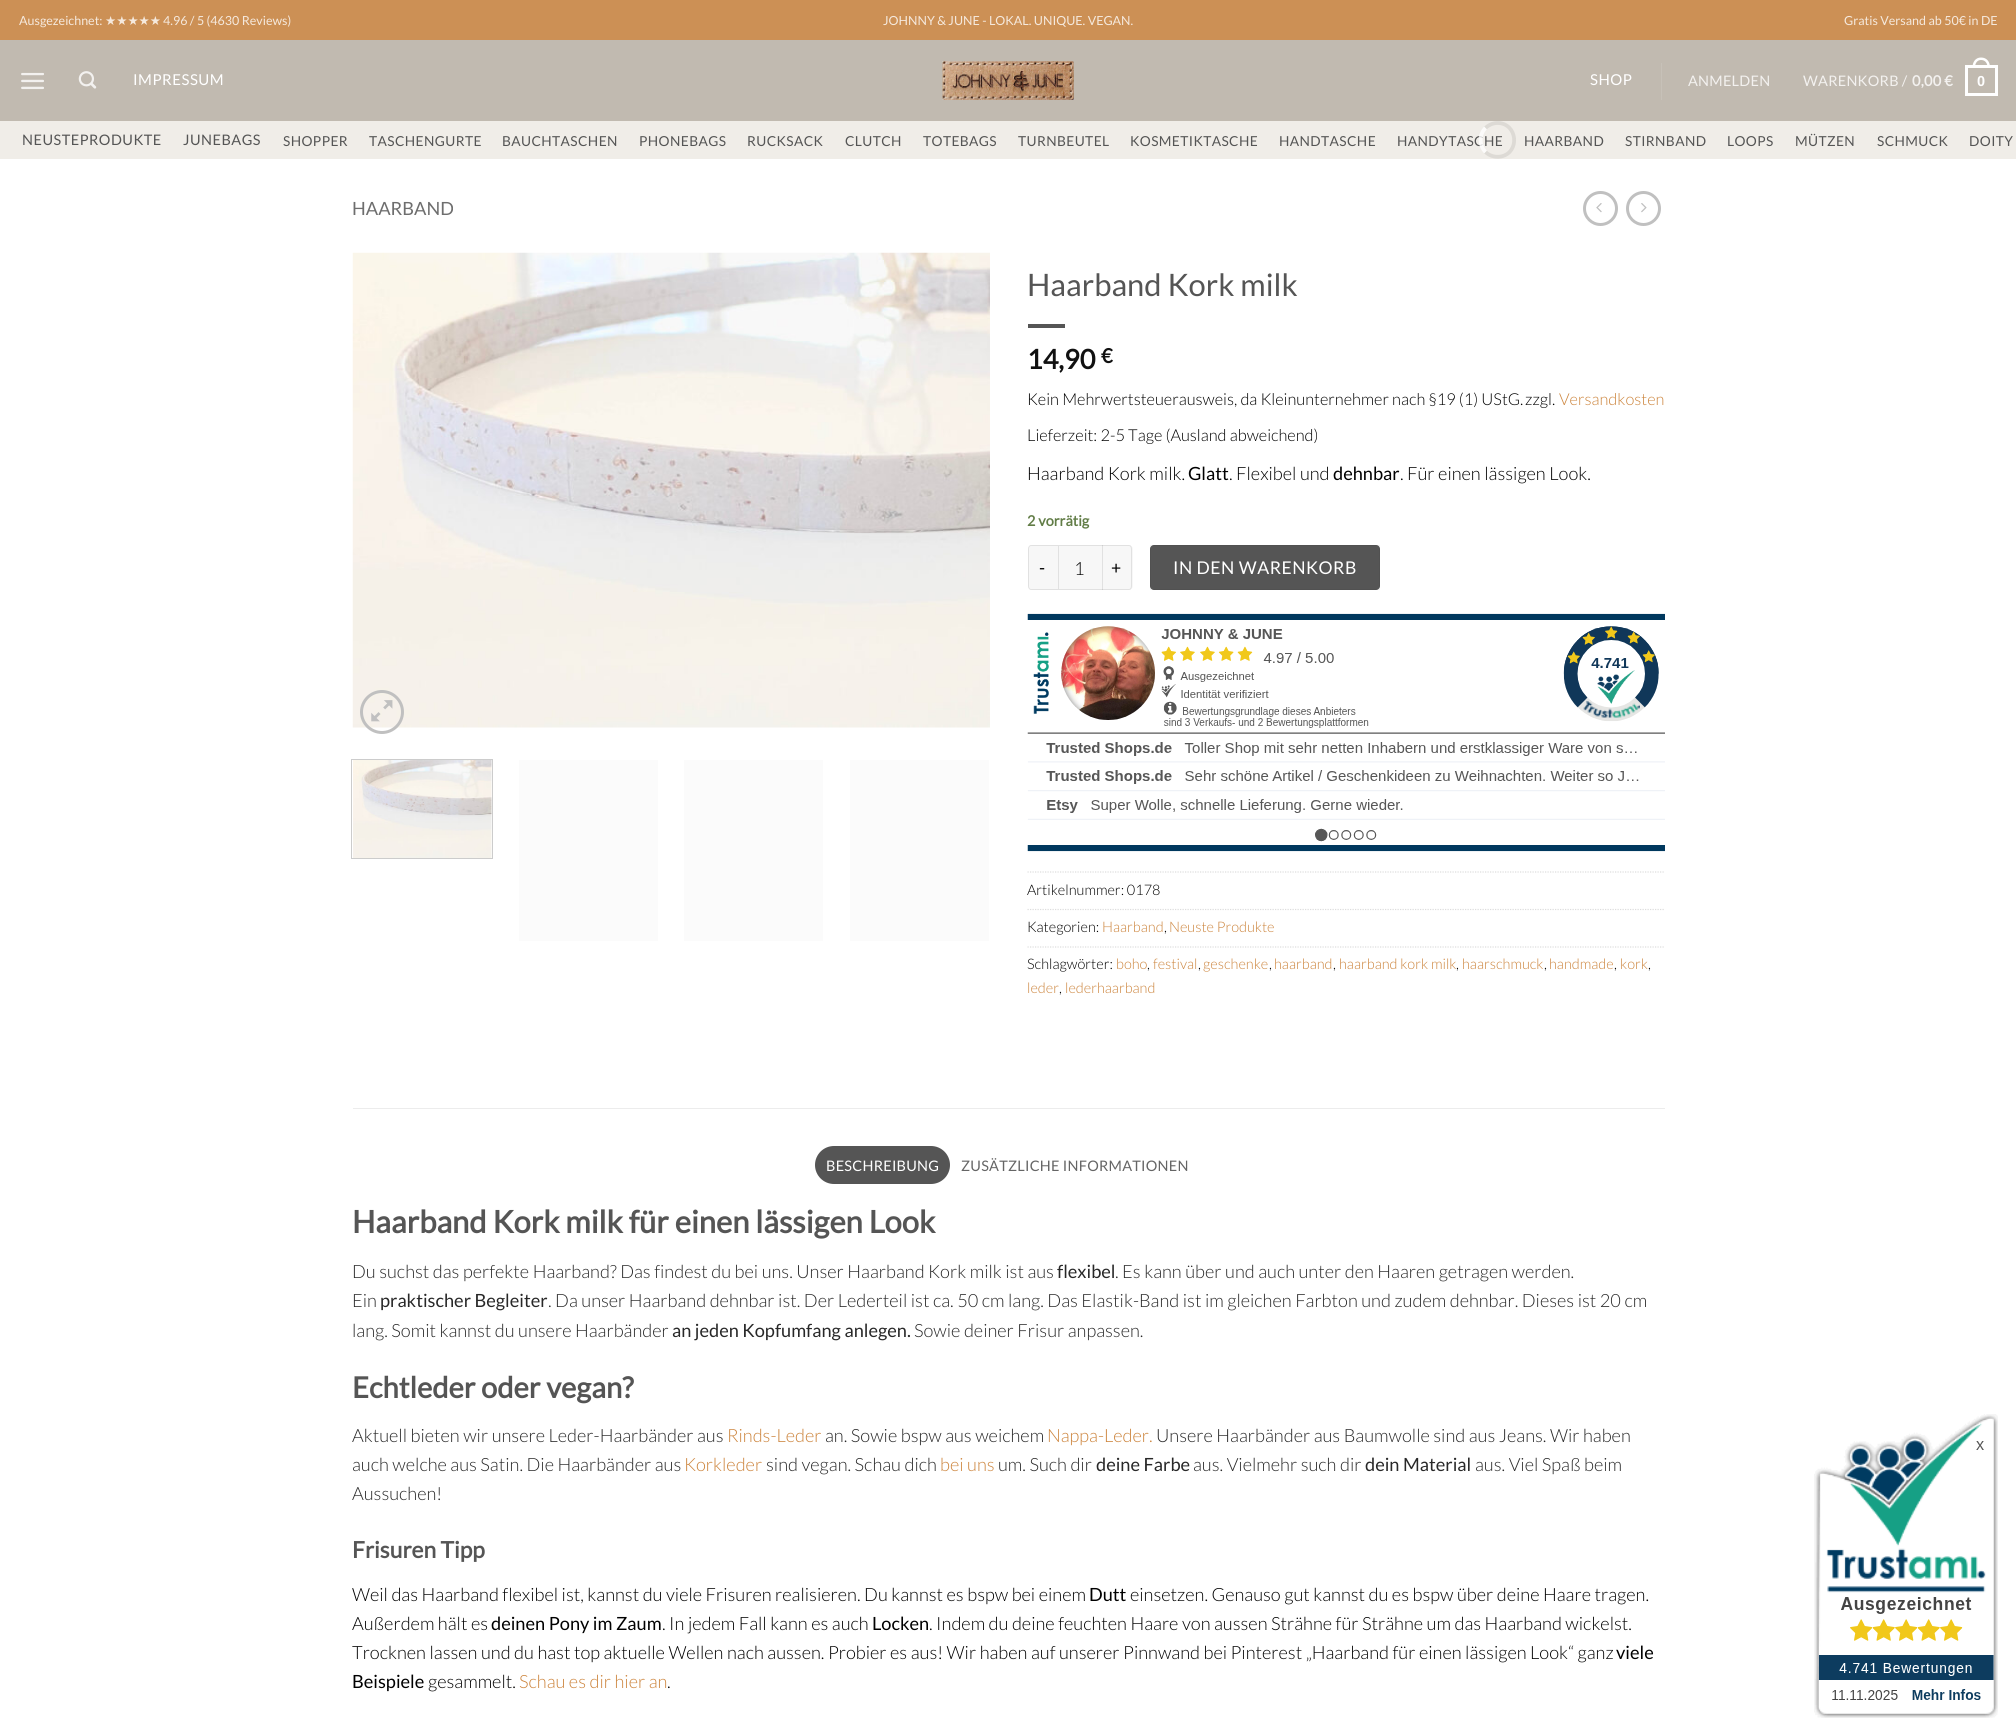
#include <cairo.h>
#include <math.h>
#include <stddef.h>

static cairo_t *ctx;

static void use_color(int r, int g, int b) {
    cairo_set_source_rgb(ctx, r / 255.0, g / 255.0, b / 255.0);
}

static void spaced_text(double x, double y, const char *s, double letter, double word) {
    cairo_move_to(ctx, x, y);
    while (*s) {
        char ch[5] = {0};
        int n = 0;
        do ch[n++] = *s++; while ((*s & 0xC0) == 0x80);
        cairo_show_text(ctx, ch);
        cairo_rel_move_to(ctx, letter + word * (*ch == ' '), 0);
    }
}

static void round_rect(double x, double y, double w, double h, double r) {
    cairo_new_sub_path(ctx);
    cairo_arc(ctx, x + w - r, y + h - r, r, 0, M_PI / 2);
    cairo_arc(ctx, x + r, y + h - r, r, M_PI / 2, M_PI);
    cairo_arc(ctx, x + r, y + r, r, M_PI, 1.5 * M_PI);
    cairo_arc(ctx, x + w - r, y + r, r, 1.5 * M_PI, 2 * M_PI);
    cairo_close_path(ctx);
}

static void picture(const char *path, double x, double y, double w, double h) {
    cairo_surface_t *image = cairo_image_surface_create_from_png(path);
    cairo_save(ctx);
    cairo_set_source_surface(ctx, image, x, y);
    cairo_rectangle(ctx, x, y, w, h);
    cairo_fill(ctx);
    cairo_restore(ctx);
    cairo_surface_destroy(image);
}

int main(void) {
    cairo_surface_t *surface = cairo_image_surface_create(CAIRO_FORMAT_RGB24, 2016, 1735);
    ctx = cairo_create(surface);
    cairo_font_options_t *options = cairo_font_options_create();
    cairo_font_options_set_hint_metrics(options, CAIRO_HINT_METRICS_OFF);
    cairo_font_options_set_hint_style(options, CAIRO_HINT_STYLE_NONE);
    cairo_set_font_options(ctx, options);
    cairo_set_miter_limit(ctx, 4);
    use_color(255, 255, 255);
    cairo_paint(ctx);
    use_color(204, 144, 85);
    cairo_rectangle(ctx, 0, 0, 2016, 40);
    cairo_fill(ctx);
    cairo_select_font_face(ctx, "Lato", CAIRO_FONT_SLANT_NORMAL, CAIRO_FONT_WEIGHT_NORMAL);
    cairo_set_font_size(ctx, 12.5);
    use_color(245, 233, 221);
    cairo_move_to(ctx, 19, 25);
    cairo_show_text(ctx, "Ausgezeichnet:");
    cairo_select_font_face(ctx, "DejaVu Sans", CAIRO_FONT_SLANT_NORMAL, CAIRO_FONT_WEIGHT_NORMAL);
    cairo_move_to(ctx, 105, 25);
    cairo_show_text(ctx, "★★★★★");
    cairo_select_font_face(ctx, "Lato", CAIRO_FONT_SLANT_NORMAL, CAIRO_FONT_WEIGHT_NORMAL);
    cairo_move_to(ctx, 163, 25);
    cairo_show_text(ctx, "4.96 / 5 (4630 Reviews)");
    cairo_move_to(ctx, 883, 25);
    cairo_show_text(ctx, "JOHNNY & JUNE - LOKAL. UNIQUE. VEGAN.");
    cairo_move_to(ctx, 1844, 25);
    cairo_show_text(ctx, "Gratis Versand ab 50€ in DE");
    use_color(193, 186, 176);
    cairo_rectangle(ctx, 0, 40, 2016, 81);
    cairo_fill(ctx);
    picture("img1.png", 21, 72, 23, 18);
    picture("img2.png", 78, 71, 19, 18);
    cairo_set_font_size(ctx, 15);
    use_color(255, 255, 255);
    spaced_text(133, 85, "IMPRESSUM", 0.5, 0);
    picture("img3.png", 942, 61, 132, 39);
    spaced_text(1590, 85, "SHOP", 0.5, 0);
    use_color(199, 193, 184);
    cairo_rectangle(ctx, 1661, 63, 1, 37);
    cairo_fill(ctx);
    cairo_set_font_size(ctx, 14.5);
    use_color(243, 241, 239);
    spaced_text(1688, 86, "ANMELDEN", 0.25, 0);
    spaced_text(1803, 86, "WARENKORB /", 0.25, 0);
    cairo_select_font_face(ctx, "Lato", CAIRO_FONT_SLANT_NORMAL, CAIRO_FONT_WEIGHT_BOLD);
    spaced_text(1912, 86, "0,00 €", 0.25, 0);
    cairo_rectangle(ctx, 1966.5, 66.5, 30, 28);
    use_color(255, 255, 255);
    cairo_set_line_width(ctx, 3);
    cairo_stroke(ctx);
    cairo_set_fill_rule(ctx, CAIRO_FILL_RULE_EVEN_ODD);
    cairo_new_path(ctx);
    cairo_move_to(ctx, 1981, 57.5);
    cairo_curve_to(ctx, 1987, 57.5, 1990, 62, 1990, 67.5);
    cairo_line_to(ctx, 1972.5, 67.5);
    cairo_curve_to(ctx, 1972.5, 62, 1975.5, 57.5, 1981, 57.5);
    cairo_close_path(ctx);
    cairo_move_to(ctx, 1981, 60);
    cairo_curve_to(ctx, 1985.5, 60, 1987.5, 63.5, 1987.5, 67.5);
    cairo_line_to(ctx, 1975, 67.5);
    cairo_curve_to(ctx, 1975, 63.5, 1977, 60, 1981, 60);
    cairo_close_path(ctx);
    cairo_fill(ctx);
    cairo_select_font_face(ctx, "Liberation Sans", CAIRO_FONT_SLANT_NORMAL, CAIRO_FONT_WEIGHT_BOLD);
    spaced_text(1977, 86, "0", 0.25, 0);
    use_color(240, 237, 232);
    cairo_rectangle(ctx, 0, 121, 2016, 38);
    cairo_fill(ctx);
    cairo_select_font_face(ctx, "Lato", CAIRO_FONT_SLANT_NORMAL, CAIRO_FONT_WEIGHT_NORMAL);
    cairo_set_font_size(ctx, 13.75);
    use_color(85, 85, 85);
    spaced_text(1397, 146, "HANDYTASCHE", 0.4, 0);
    cairo_new_path(ctx);
    cairo_move_to(ctx, 1485.5, 128);
    cairo_curve_to(ctx, 1488.5, 125, 1493, 123, 1497.5, 123);
    cairo_curve_to(ctx, 1517.5, 123, 1520.5, 152.5, 1501, 156.5);
    cairo_curve_to(ctx, 1495.5, 157.5, 1489.5, 156, 1485.5, 152);
    use_color(221, 218, 213);
    cairo_set_line_width(ctx, 3.8);
    cairo_stroke(ctx);
    cairo_new_path(ctx);
    cairo_move_to(ctx, 1485.5, 152);
    cairo_curve_to(ctx, 1479, 145.5, 1479, 134.5, 1485.5, 128);
    cairo_set_source_rgba(ctx, 1, 1, 1, 0.8);
    cairo_stroke(ctx);
    cairo_set_font_size(ctx, 14.5);
    use_color(85, 85, 85);
    spaced_text(22, 145, "NEUSTEPRODUKTE", 0.5, 0);
    spaced_text(183, 145, "JUNEBAGS", 0.5, 0);
    cairo_set_font_size(ctx, 13.75);
    spaced_text(283, 146, "SHOPPER", 0.4, 0);
    spaced_text(369, 146, "TASCHENGURTE", 0.4, 0);
    spaced_text(502, 146, "BAUCHTASCHEN", 0.4, 0);
    spaced_text(639, 146, "PHONEBAGS", 0.4, 0);
    spaced_text(747, 146, "RUCKSACK", 0.4, 0);
    spaced_text(845, 146, "CLUTCH", 0.4, 0);
    spaced_text(923, 146, "TOTEBAGS", 0.4, 0);
    spaced_text(1018, 146, "TURNBEUTEL", 0.4, 0);
    spaced_text(1130, 146, "KOSMETIKTASCHE", 0.4, 0);
    spaced_text(1279, 146, "HANDTASCHE", 0.4, 0);
    spaced_text(1524, 146, "HAARBAND", 0.4, 0);
    spaced_text(1625, 146, "STIRNBAND", 0.4, 0);
    spaced_text(1727, 146, "LOOPS", 0.4, 0);
    spaced_text(1795, 146, "MÜTZEN", 0.4, 0);
    spaced_text(1877, 146, "SCHMUCK", 0.4, 0);
    spaced_text(1969, 146, "DOITY", 0.4, 0);
    cairo_set_font_size(ctx, 18.2);
    use_color(110, 110, 110);
    cairo_move_to(ctx, 352, 215);
    cairo_show_text(ctx, "HAARBAND");
    cairo_new_path(ctx);
    cairo_arc(ctx, 1600.5, 208.5, 16, 0, 2 * M_PI);
    use_color(192, 192, 192);
    cairo_set_line_width(ctx, 3);
    cairo_stroke(ctx);
    picture("img4.png", 1596, 203, 6, 10);
    cairo_arc(ctx, 1643.5, 208.5, 16, 0, 2 * M_PI);
    cairo_stroke(ctx);
    picture("img5.png", 1641, 203, 6, 10);
    picture("img6.png", 352, 252, 638, 476);
    cairo_arc(ctx, 382, 712, 20.5, 0, 2 * M_PI);
    cairo_stroke(ctx);
    picture("img7.png", 371, 700, 22, 22);
    cairo_rectangle(ctx, 351.5, 759.5, 141, 99);
    use_color(204, 204, 204);
    cairo_set_line_width(ctx, 1);
    cairo_stroke(ctx);
    picture("img8.png", 353, 760, 139, 98);
    use_color(251, 251, 251);
    cairo_rectangle(ctx, 519, 760, 139, 181);
    cairo_fill(ctx);
    cairo_rectangle(ctx, 684, 760, 139, 181);
    cairo_fill(ctx);
    cairo_rectangle(ctx, 850, 760, 139, 181);
    cairo_fill(ctx);
    cairo_set_font_size(ctx, 30.9);
    use_color(85, 85, 85);
    cairo_move_to(ctx, 1027, 296);
    cairo_show_text(ctx, "Haarband Kork milk");
    cairo_rectangle(ctx, 1028, 324, 37, 4);
    cairo_fill(ctx);
    cairo_select_font_face(ctx, "Lato", CAIRO_FONT_SLANT_NORMAL, CAIRO_FONT_WEIGHT_BOLD);
    cairo_set_font_size(ctx, 27);
    use_color(17, 17, 17);
    cairo_move_to(ctx, 1027, 369);
    cairo_show_text(ctx, "14,90");
    cairo_set_font_size(ctx, 20);
    cairo_move_to(ctx, 1101, 363);
    cairo_show_text(ctx, "€");
    cairo_select_font_face(ctx, "Lato Light", CAIRO_FONT_SLANT_NORMAL, CAIRO_FONT_WEIGHT_NORMAL);
    cairo_set_font_size(ctx, 16.4);
    use_color(0, 0, 0);
    cairo_move_to(ctx, 1027, 405);
    cairo_show_text(ctx, "Kein Mehrwertsteuerausweis, da Kleinunternehmer nach §19 (1) UStG.");
    cairo_move_to(ctx, 1525, 405);
    cairo_show_text(ctx, "zzgl.");
    use_color(204, 132, 60);
    cairo_move_to(ctx, 1559, 405);
    cairo_show_text(ctx, "Versandkosten");
    use_color(0, 0, 0);
    cairo_move_to(ctx, 1027, 441);
    cairo_show_text(ctx, "Lieferzeit: 2-5 Tage (Ausland abweichend)");
    cairo_set_font_size(ctx, 18.2);
    cairo_move_to(ctx, 1027, 480);
    cairo_show_text(ctx, "Haarband Kork milk.");
    cairo_select_font_face(ctx, "Lato", CAIRO_FONT_SLANT_NORMAL, CAIRO_FONT_WEIGHT_NORMAL);
    cairo_move_to(ctx, 1188, 480);
    cairo_show_text(ctx, "Glatt");
    cairo_select_font_face(ctx, "Lato Light", CAIRO_FONT_SLANT_NORMAL, CAIRO_FONT_WEIGHT_NORMAL);
    cairo_move_to(ctx, 1229, 480);
    cairo_show_text(ctx, ". Flexibel und");
    cairo_select_font_face(ctx, "Lato", CAIRO_FONT_SLANT_NORMAL, CAIRO_FONT_WEIGHT_NORMAL);
    cairo_move_to(ctx, 1333, 480);
    cairo_show_text(ctx, "dehnbar");
    cairo_select_font_face(ctx, "Lato Light", CAIRO_FONT_SLANT_NORMAL, CAIRO_FONT_WEIGHT_NORMAL);
    cairo_move_to(ctx, 1400, 480);
    cairo_show_text(ctx, ". Für einen lässigen Look.");
    cairo_select_font_face(ctx, "Lato", CAIRO_FONT_SLANT_NORMAL, CAIRO_FONT_WEIGHT_BOLD);
    cairo_set_font_size(ctx, 14.5);
    use_color(98, 125, 71);
    cairo_move_to(ctx, 1027, 526);
    cairo_show_text(ctx, "2 vorrätig");
    use_color(247, 247, 247);
    cairo_new_path(ctx);
    cairo_move_to(ctx, 1032, 545);
    cairo_line_to(ctx, 1058, 545);
    cairo_line_to(ctx, 1058, 590);
    cairo_line_to(ctx, 1032, 590);
    cairo_curve_to(ctx, 1030, 590, 1028, 588, 1028, 586);
    cairo_line_to(ctx, 1028, 549);
    cairo_curve_to(ctx, 1028, 547, 1030, 545, 1032, 545);
    cairo_close_path(ctx);
    cairo_fill(ctx);
    cairo_set_source_rgba(ctx, 0, 0, 0, 0.09);
    cairo_new_path(ctx);
    cairo_move_to(ctx, 1031, 545);
    cairo_line_to(ctx, 1058, 545);
    cairo_line_to(ctx, 1058, 590);
    cairo_line_to(ctx, 1031, 590);
    cairo_curve_to(ctx, 1029, 590, 1028, 588, 1028, 586);
    cairo_line_to(ctx, 1028, 549);
    cairo_curve_to(ctx, 1028, 547, 1029, 545, 1031, 545);
    cairo_close_path(ctx);
    cairo_move_to(ctx, 1031, 546);
    cairo_line_to(ctx, 1058, 546);
    cairo_line_to(ctx, 1058, 589);
    cairo_line_to(ctx, 1031, 589);
    cairo_curve_to(ctx, 1030, 589, 1029, 588, 1029, 586);
    cairo_line_to(ctx, 1029, 549);
    cairo_curve_to(ctx, 1029, 547, 1030, 546, 1031, 546);
    cairo_close_path(ctx);
    cairo_fill(ctx);
    cairo_select_font_face(ctx, "Lato", CAIRO_FONT_SLANT_NORMAL, CAIRO_FONT_WEIGHT_NORMAL);
    cairo_set_font_size(ctx, 17.6);
    use_color(0, 0, 0);
    spaced_text(1039, 574, "-", 0.5, 0);
    use_color(247, 247, 247);
    cairo_rectangle(ctx, 1058.5, 545.5, 44, 44);
    cairo_fill_preserve(ctx);
    use_color(225, 225, 225);
    cairo_stroke(ctx);
    cairo_select_font_face(ctx, "Lato Light", CAIRO_FONT_SLANT_NORMAL, CAIRO_FONT_WEIGHT_NORMAL);
    cairo_set_font_size(ctx, 18.2);
    use_color(0, 0, 0);
    cairo_move_to(ctx, 1074, 575);
    cairo_show_text(ctx, "1");
    use_color(247, 247, 247);
    cairo_new_path(ctx);
    cairo_move_to(ctx, 1103, 545);
    cairo_line_to(ctx, 1129, 545);
    cairo_curve_to(ctx, 1131, 545, 1133, 547, 1133, 549);
    cairo_line_to(ctx, 1133, 586);
    cairo_curve_to(ctx, 1133, 588, 1131, 590, 1129, 590);
    cairo_line_to(ctx, 1103, 590);
    cairo_close_path(ctx);
    cairo_fill(ctx);
    cairo_set_source_rgba(ctx, 0, 0, 0, 0.09);
    cairo_new_path(ctx);
    cairo_move_to(ctx, 1102, 545);
    cairo_line_to(ctx, 1129, 545);
    cairo_curve_to(ctx, 1131, 545, 1132, 547, 1132, 549);
    cairo_line_to(ctx, 1132, 586);
    cairo_curve_to(ctx, 1132, 588, 1131, 590, 1129, 590);
    cairo_line_to(ctx, 1102, 590);
    cairo_close_path(ctx);
    cairo_move_to(ctx, 1102, 546);
    cairo_line_to(ctx, 1129, 546);
    cairo_curve_to(ctx, 1130, 546, 1131, 547, 1131, 549);
    cairo_line_to(ctx, 1131, 586);
    cairo_curve_to(ctx, 1131, 588, 1130, 589, 1129, 589);
    cairo_line_to(ctx, 1102, 589);
    cairo_close_path(ctx);
    cairo_fill(ctx);
    cairo_select_font_face(ctx, "Lato", CAIRO_FONT_SLANT_NORMAL, CAIRO_FONT_WEIGHT_NORMAL);
    cairo_set_font_size(ctx, 17.6);
    use_color(0, 0, 0);
    spaced_text(1111, 574, "+", 0.5, 0);
    use_color(85, 85, 85);
    round_rect(1150, 545, 230, 45, 4);
    cairo_fill(ctx);
    cairo_rectangle(ctx, 1150.5, 545.5, 229, 44);
    cairo_set_source_rgba(ctx, 0, 0, 0, 0.05);
    cairo_stroke(ctx);
    use_color(255, 255, 255);
    spaced_text(1173, 574, "IN DEN WARENKORB", 0.5, 0);
    picture("img9.png", 1027, 613, 638, 239);
    cairo_new_path(ctx);
    cairo_move_to(ctx, 1027.5, 872);
    cairo_line_to(ctx, 1665, 872);
    use_color(221, 221, 221);
    cairo_set_line_width(ctx, 1.2);
    cairo_set_dash(ctx, (double[]){1.25, 1.25}, 2, 0);
    cairo_stroke(ctx);
    cairo_select_font_face(ctx, "Lato Light", CAIRO_FONT_SLANT_NORMAL, CAIRO_FONT_WEIGHT_NORMAL);
    cairo_set_font_size(ctx, 14.5);
    use_color(0, 0, 0);
    cairo_move_to(ctx, 1027, 895);
    cairo_show_text(ctx, "Artikelnummer: 0178");
    cairo_new_path(ctx);
    cairo_move_to(ctx, 1027.5, 909.5);
    cairo_line_to(ctx, 1665, 909.5);
    use_color(221, 221, 221);
    cairo_stroke(ctx);
    use_color(0, 0, 0);
    cairo_move_to(ctx, 1027, 932);
    cairo_show_text(ctx, "Kategorien:");
    use_color(204, 132, 60);
    cairo_move_to(ctx, 1102, 932);
    cairo_show_text(ctx, "Haarband");
    use_color(0, 0, 0);
    cairo_move_to(ctx, 1164, 932);
    cairo_show_text(ctx, ",");
    use_color(204, 132, 60);
    cairo_move_to(ctx, 1169, 932);
    cairo_show_text(ctx, "Neuste Produkte");
    cairo_new_path(ctx);
    cairo_move_to(ctx, 1027.5, 947);
    cairo_line_to(ctx, 1665, 947);
    use_color(221, 221, 221);
    cairo_stroke(ctx);
    use_color(0, 0, 0);
    cairo_move_to(ctx, 1027, 969);
    cairo_show_text(ctx, "Schlagwörter:");
    use_color(204, 132, 60);
    cairo_move_to(ctx, 1116, 969);
    cairo_show_text(ctx, "boho");
    use_color(0, 0, 0);
    cairo_move_to(ctx, 1147, 969);
    cairo_show_text(ctx, ",");
    use_color(204, 132, 60);
    cairo_move_to(ctx, 1153, 969);
    cairo_show_text(ctx, "festival");
    use_color(0, 0, 0);
    cairo_move_to(ctx, 1198, 969);
    cairo_show_text(ctx, ",");
    use_color(204, 132, 60);
    cairo_move_to(ctx, 1203, 969);
    cairo_show_text(ctx, "geschenke");
    use_color(0, 0, 0);
    cairo_move_to(ctx, 1269, 969);
    cairo_show_text(ctx, ",");
    use_color(204, 132, 60);
    cairo_move_to(ctx, 1274, 969);
    cairo_show_text(ctx, "haarband");
    use_color(0, 0, 0);
    cairo_move_to(ctx, 1333, 969);
    cairo_show_text(ctx, ",");
    use_color(204, 132, 60);
    cairo_move_to(ctx, 1339, 969);
    cairo_show_text(ctx, "haarband kork milk");
    use_color(0, 0, 0);
    cairo_move_to(ctx, 1456, 969);
    cairo_show_text(ctx, ",");
    use_color(204, 132, 60);
    cairo_move_to(ctx, 1462, 969);
    cairo_show_text(ctx, "haarschmuck");
    use_color(0, 0, 0);
    cairo_move_to(ctx, 1544, 969);
    cairo_show_text(ctx, ",");
    use_color(204, 132, 60);
    cairo_move_to(ctx, 1549, 969);
    cairo_show_text(ctx, "handmade");
    use_color(0, 0, 0);
    cairo_move_to(ctx, 1614, 969);
    cairo_show_text(ctx, ",");
    use_color(204, 132, 60);
    cairo_move_to(ctx, 1620, 969);
    cairo_show_text(ctx, "kork");
    use_color(0, 0, 0);
    cairo_move_to(ctx, 1648, 969);
    cairo_show_text(ctx, ",");
    use_color(204, 132, 60);
    cairo_move_to(ctx, 1027, 993);
    cairo_show_text(ctx, "leder");
    use_color(0, 0, 0);
    cairo_move_to(ctx, 1059, 993);
    cairo_show_text(ctx, ",");
    use_color(204, 132, 60);
    cairo_move_to(ctx, 1065, 993);
    cairo_show_text(ctx, "lederhaarband");
    use_color(236, 236, 236);
    cairo_rectangle(ctx, 353, 1108, 1312, 1);
    cairo_fill(ctx);
    use_color(85, 85, 85);
    round_rect(815, 1146, 135, 38, 19);
    cairo_fill(ctx);
    cairo_select_font_face(ctx, "Lato", CAIRO_FONT_SLANT_NORMAL, CAIRO_FONT_WEIGHT_NORMAL);
    use_color(255, 255, 255);
    spaced_text(826, 1171, "BESCHREIBUNG", 0.25, 0);
    use_color(101, 101, 101);
    spaced_text(961, 1171, "ZUSÄTZLICHE INFORMATIONEN", 0.25, 0);
    cairo_select_font_face(ctx, "Lato", CAIRO_FONT_SLANT_NORMAL, CAIRO_FONT_WEIGHT_BOLD);
    cairo_set_font_size(ctx, 30.9);
    use_color(85, 85, 85);
    cairo_move_to(ctx, 352, 1233);
    cairo_show_text(ctx, "Haarband Kork milk für einen lässigen Look");
    cairo_select_font_face(ctx, "Lato Light", CAIRO_FONT_SLANT_NORMAL, CAIRO_FONT_WEIGHT_NORMAL);
    cairo_set_font_size(ctx, 18.2);
    use_color(40, 40, 40);
    cairo_move_to(ctx, 352, 1278);
    cairo_show_text(ctx, "Du suchst das perfekte Haarband? Das findest du bei uns. Unser Haarband Kork milk ist aus");
    cairo_select_font_face(ctx, "Lato", CAIRO_FONT_SLANT_NORMAL, CAIRO_FONT_WEIGHT_NORMAL);
    cairo_move_to(ctx, 1057, 1278);
    cairo_show_text(ctx, "flexibel");
    cairo_select_font_face(ctx, "Lato Light", CAIRO_FONT_SLANT_NORMAL, CAIRO_FONT_WEIGHT_NORMAL);
    cairo_move_to(ctx, 1115, 1278);
    cairo_show_text(ctx, ". Es kann über und auch unter den Haaren getragen werden.");
    cairo_move_to(ctx, 352, 1307);
    cairo_show_text(ctx, "Ein");
    cairo_select_font_face(ctx, "Lato", CAIRO_FONT_SLANT_NORMAL, CAIRO_FONT_WEIGHT_NORMAL);
    cairo_move_to(ctx, 380, 1307);
    cairo_show_text(ctx, "praktischer Begleiter");
    cairo_select_font_face(ctx, "Lato Light", CAIRO_FONT_SLANT_NORMAL, CAIRO_FONT_WEIGHT_NORMAL);
    cairo_move_to(ctx, 548, 1307);
    cairo_show_text(ctx, ". Da unser Haarband dehnbar ist. Der Lederteil ist ca. 50 cm lang. Das Elastik-Band ist im gleichen Farbton und zudem dehnbar. Dieses ist 20 cm");
    cairo_move_to(ctx, 352, 1337);
    cairo_show_text(ctx, "lang. Somit kannst du unsere Haarbänder");
    cairo_select_font_face(ctx, "Lato", CAIRO_FONT_SLANT_NORMAL, CAIRO_FONT_WEIGHT_NORMAL);
    cairo_move_to(ctx, 672, 1337);
    cairo_show_text(ctx, "an jeden Kopfumfang anlegen.");
    cairo_select_font_face(ctx, "Lato Light", CAIRO_FONT_SLANT_NORMAL, CAIRO_FONT_WEIGHT_NORMAL);
    cairo_move_to(ctx, 914, 1337);
    cairo_show_text(ctx, "Sowie deiner Frisur anpassen.");
    cairo_select_font_face(ctx, "Lato", CAIRO_FONT_SLANT_NORMAL, CAIRO_FONT_WEIGHT_BOLD);
    cairo_set_font_size(ctx, 29.1);
    use_color(85, 85, 85);
    cairo_move_to(ctx, 352, 1398);
    cairo_show_text(ctx, "Echtleder oder vegan?");
    cairo_select_font_face(ctx, "Lato Light", CAIRO_FONT_SLANT_NORMAL, CAIRO_FONT_WEIGHT_NORMAL);
    cairo_set_font_size(ctx, 18.2);
    use_color(40, 40, 40);
    cairo_move_to(ctx, 352, 1442);
    cairo_show_text(ctx, "Aktuell bieten wir unsere Leder-Haarbänder aus");
    use_color(204, 132, 60);
    cairo_move_to(ctx, 727, 1442);
    cairo_show_text(ctx, "Rinds-Leder");
    use_color(40, 40, 40);
    cairo_move_to(ctx, 825, 1442);
    cairo_show_text(ctx, "an. Sowie bspw aus weichem");
    use_color(204, 132, 60);
    cairo_move_to(ctx, 1047, 1442);
    cairo_show_text(ctx, "Nappa-Leder.");
    use_color(40, 40, 40);
    cairo_move_to(ctx, 1156, 1442);
    cairo_show_text(ctx, "Unsere Haarbänder aus Baumwolle sind aus Jeans. Wir haben");
    cairo_move_to(ctx, 352, 1471);
    cairo_show_text(ctx, "auch welche aus Satin. Die Haarbänder aus");
    use_color(204, 132, 60);
    cairo_move_to(ctx, 684, 1471);
    cairo_show_text(ctx, "Korkleder");
    use_color(40, 40, 40);
    cairo_move_to(ctx, 766, 1471);
    cairo_show_text(ctx, "sind vegan. Schau dich");
    use_color(204, 132, 60);
    cairo_move_to(ctx, 940, 1471);
    cairo_show_text(ctx, "bei uns");
    use_color(40, 40, 40);
    cairo_move_to(ctx, 998, 1471);
    cairo_show_text(ctx, "um. Such dir");
    cairo_select_font_face(ctx, "Lato", CAIRO_FONT_SLANT_NORMAL, CAIRO_FONT_WEIGHT_NORMAL);
    cairo_move_to(ctx, 1096, 1471);
    cairo_show_text(ctx, "deine Farbe");
    cairo_select_font_face(ctx, "Lato Light", CAIRO_FONT_SLANT_NORMAL, CAIRO_FONT_WEIGHT_NORMAL);
    cairo_move_to(ctx, 1193, 1471);
    cairo_show_text(ctx, "aus. Vielmehr such dir");
    cairo_select_font_face(ctx, "Lato", CAIRO_FONT_SLANT_NORMAL, CAIRO_FONT_WEIGHT_NORMAL);
    cairo_move_to(ctx, 1365, 1471);
    cairo_show_text(ctx, "dein Material");
    cairo_select_font_face(ctx, "Lato Light", CAIRO_FONT_SLANT_NORMAL, CAIRO_FONT_WEIGHT_NORMAL);
    cairo_move_to(ctx, 1475, 1471);
    cairo_show_text(ctx, "aus. Viel Spaß beim");
    cairo_move_to(ctx, 352, 1500);
    cairo_show_text(ctx, "Aussuchen!");
    cairo_select_font_face(ctx, "Lato", CAIRO_FONT_SLANT_NORMAL, CAIRO_FONT_WEIGHT_BOLD);
    cairo_set_font_size(ctx, 22.75);
    use_color(85, 85, 85);
    cairo_move_to(ctx, 352, 1558);
    cairo_show_text(ctx, "Frisuren Tipp");
    cairo_select_font_face(ctx, "Lato Light", CAIRO_FONT_SLANT_NORMAL, CAIRO_FONT_WEIGHT_NORMAL);
    cairo_set_font_size(ctx, 18.2);
    use_color(0, 0, 0);
    cairo_move_to(ctx, 352, 1601);
    cairo_show_text(ctx, "Weil das Haarband flexibel ist, kannst du viele Frisuren realisieren. Du kannst es bspw bei einem");
    cairo_select_font_face(ctx, "Lato", CAIRO_FONT_SLANT_NORMAL, CAIRO_FONT_WEIGHT_NORMAL);
    cairo_move_to(ctx, 1089, 1601);
    cairo_show_text(ctx, "Dutt");
    cairo_select_font_face(ctx, "Lato Light", CAIRO_FONT_SLANT_NORMAL, CAIRO_FONT_WEIGHT_NORMAL);
    cairo_move_to(ctx, 1130, 1601);
    cairo_show_text(ctx, "einsetzen. Genauso gut kannst du es bspw über deine Haare tragen.");
    cairo_move_to(ctx, 352, 1630);
    cairo_show_text(ctx, "Außerdem hält es");
    cairo_select_font_face(ctx, "Lato", CAIRO_FONT_SLANT_NORMAL, CAIRO_FONT_WEIGHT_NORMAL);
    cairo_move_to(ctx, 491, 1630);
    cairo_show_text(ctx, "deinen Pony im Zaum");
    cairo_select_font_face(ctx, "Lato Light", CAIRO_FONT_SLANT_NORMAL, CAIRO_FONT_WEIGHT_NORMAL);
    cairo_move_to(ctx, 662, 1630);
    cairo_show_text(ctx, ". In jedem Fall kann es auch");
    cairo_select_font_face(ctx, "Lato", CAIRO_FONT_SLANT_NORMAL, CAIRO_FONT_WEIGHT_NORMAL);
    cairo_move_to(ctx, 872, 1630);
    cairo_show_text(ctx, "Locken");
    cairo_select_font_face(ctx, "Lato Light", CAIRO_FONT_SLANT_NORMAL, CAIRO_FONT_WEIGHT_NORMAL);
    cairo_move_to(ctx, 929, 1630);
    cairo_show_text(ctx, ". Indem du deine feuchten Haare von aussen Strähne für Strähne um das Haarband wickelst.");
    cairo_move_to(ctx, 352, 1659);
    cairo_show_text(ctx, "Trocknen lassen und du hast top aktuelle Wellen nach aussen. Probier es aus! Wir haben auf unserer Pinnwand bei Pinterest „Haarband für einen lässigen Look“ ganz");
    cairo_select_font_face(ctx, "Lato", CAIRO_FONT_SLANT_NORMAL, CAIRO_FONT_WEIGHT_NORMAL);
    cairo_move_to(ctx, 1616, 1659);
    cairo_show_text(ctx, "viele");
    cairo_move_to(ctx, 352, 1688);
    cairo_show_text(ctx, "Beispiele");
    cairo_select_font_face(ctx, "Lato Light", CAIRO_FONT_SLANT_NORMAL, CAIRO_FONT_WEIGHT_NORMAL);
    cairo_move_to(ctx, 428, 1688);
    cairo_show_text(ctx, "gesammelt.");
    use_color(204, 132, 60);
    cairo_move_to(ctx, 519, 1688);
    cairo_show_text(ctx, "Schau es dir hier an");
    use_color(0, 0, 0);
    cairo_move_to(ctx, 667, 1688);
    cairo_show_text(ctx, ".");
    picture("img10.png", 1814, 1414, 184, 304);
    cairo_surface_write_to_png(surface, "result.png");
    cairo_font_options_destroy(options);
    cairo_destroy(ctx);
    cairo_surface_destroy(surface);
    return 0;
}
